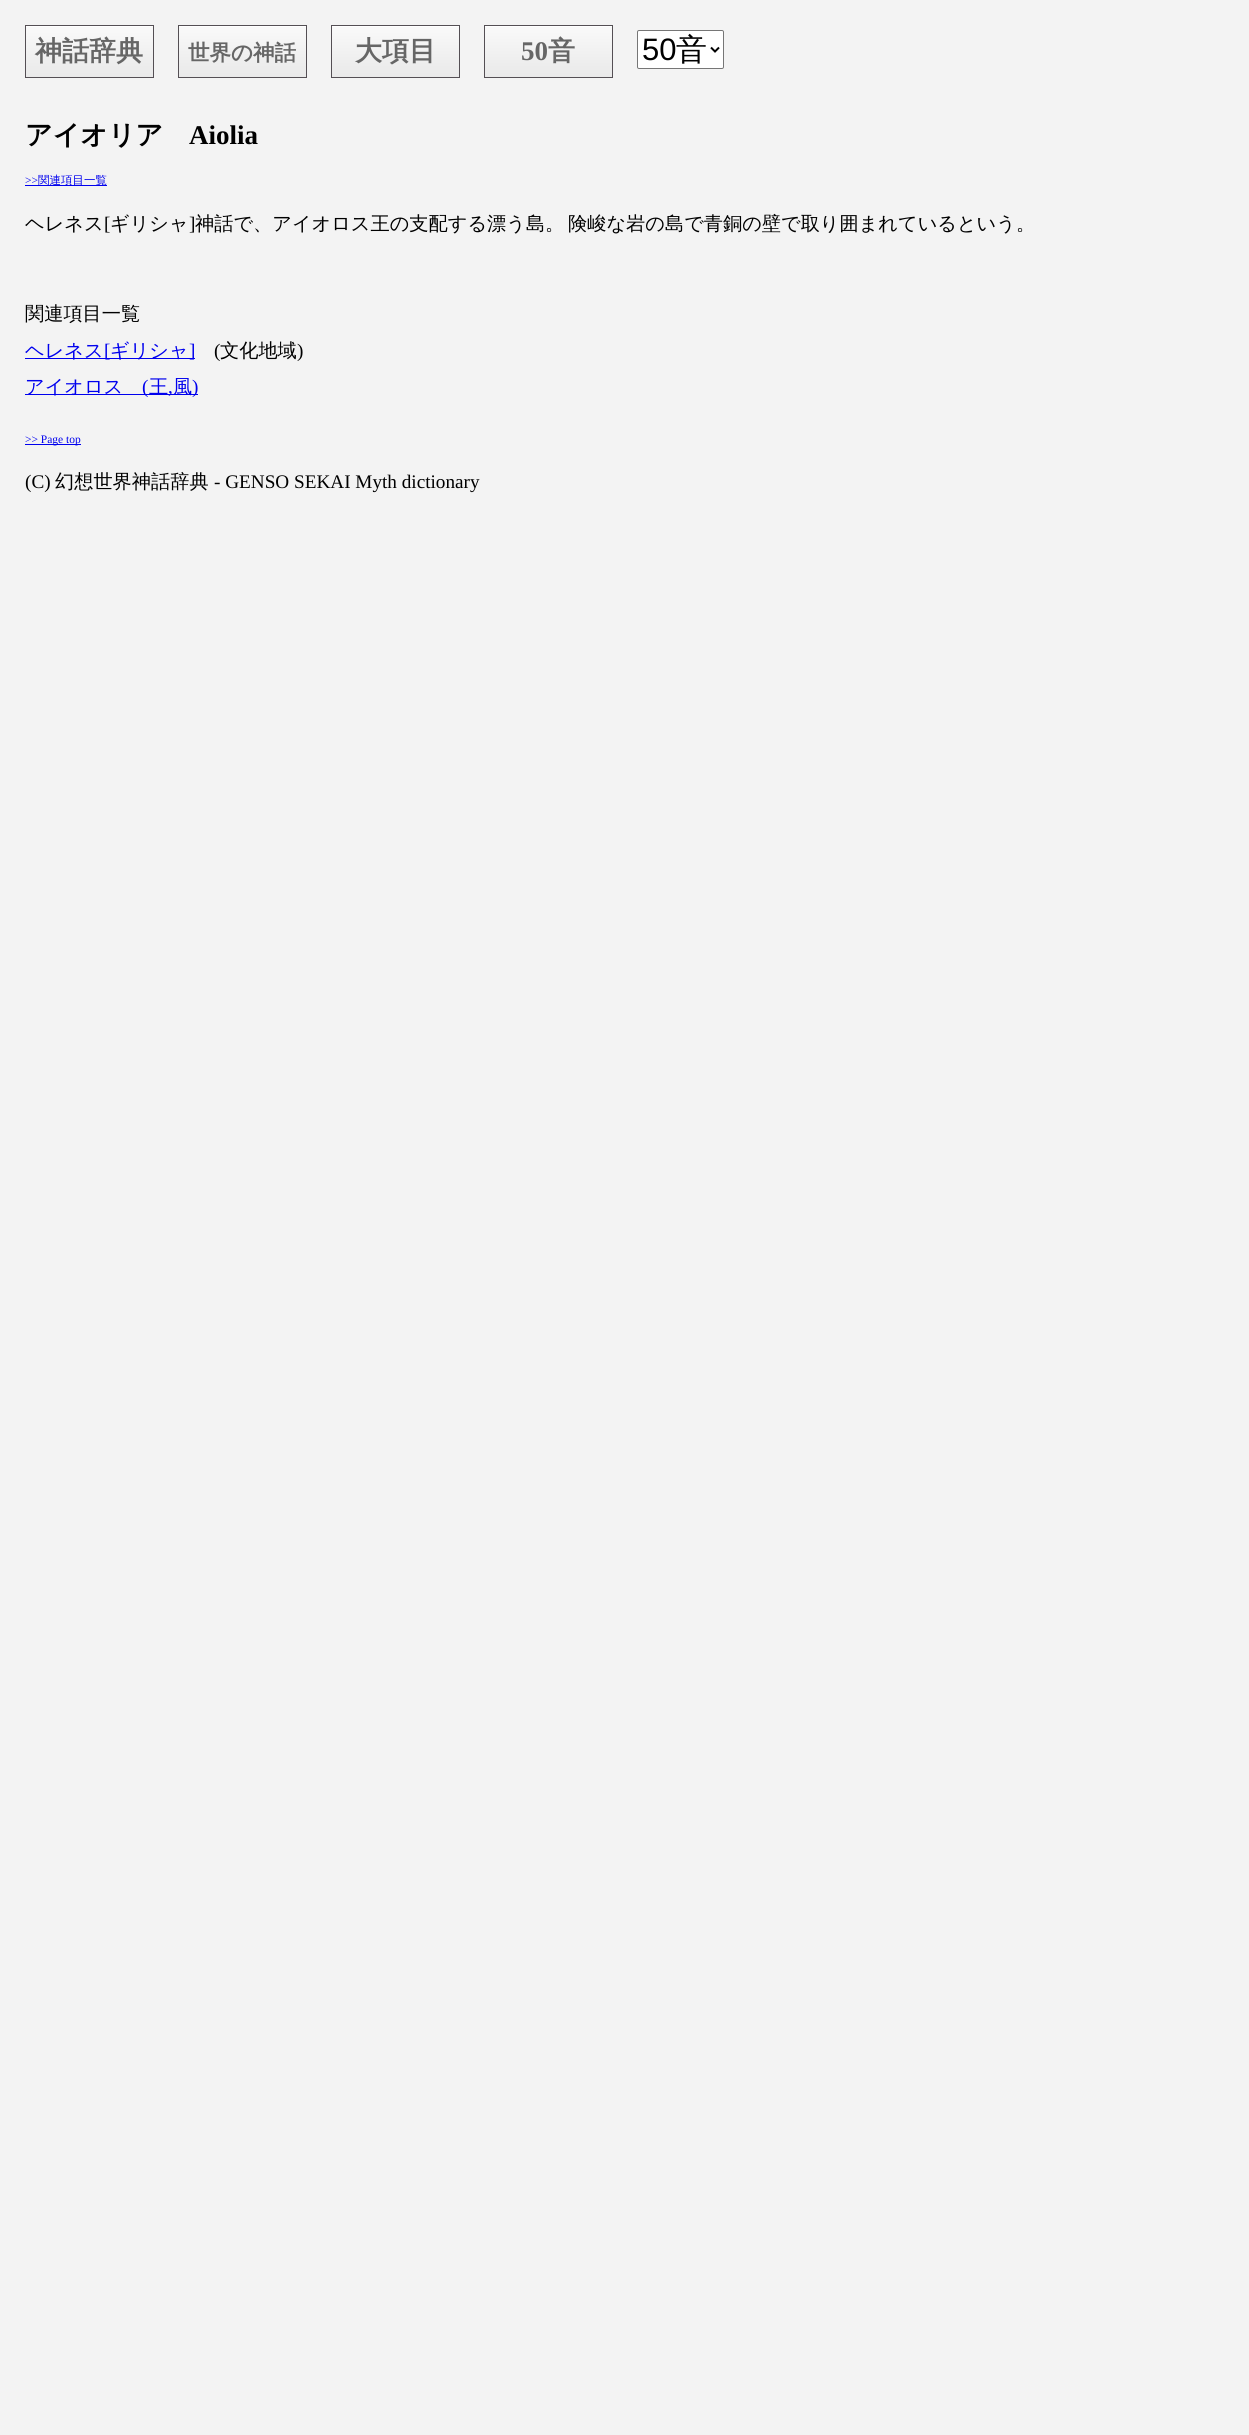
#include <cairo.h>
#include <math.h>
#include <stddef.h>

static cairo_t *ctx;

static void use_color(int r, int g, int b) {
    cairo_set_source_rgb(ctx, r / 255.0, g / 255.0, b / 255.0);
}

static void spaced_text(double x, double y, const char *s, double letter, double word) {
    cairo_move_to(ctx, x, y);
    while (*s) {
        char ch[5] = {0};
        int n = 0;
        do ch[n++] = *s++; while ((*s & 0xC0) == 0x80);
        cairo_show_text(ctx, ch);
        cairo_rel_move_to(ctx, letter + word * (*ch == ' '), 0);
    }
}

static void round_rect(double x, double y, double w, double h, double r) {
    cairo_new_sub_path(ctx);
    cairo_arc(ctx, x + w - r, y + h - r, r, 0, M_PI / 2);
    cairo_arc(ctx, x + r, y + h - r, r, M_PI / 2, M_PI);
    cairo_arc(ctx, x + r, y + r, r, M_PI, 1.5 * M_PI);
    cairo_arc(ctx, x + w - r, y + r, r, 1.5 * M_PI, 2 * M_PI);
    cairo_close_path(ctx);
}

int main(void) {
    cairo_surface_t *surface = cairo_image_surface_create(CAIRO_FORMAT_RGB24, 1249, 2435);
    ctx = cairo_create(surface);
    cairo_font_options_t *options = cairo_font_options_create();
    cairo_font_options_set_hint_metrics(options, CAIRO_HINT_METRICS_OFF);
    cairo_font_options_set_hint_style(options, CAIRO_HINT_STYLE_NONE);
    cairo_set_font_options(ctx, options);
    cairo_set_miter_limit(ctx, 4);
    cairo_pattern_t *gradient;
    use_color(243, 243, 243);
    cairo_paint(ctx);
    gradient = cairo_pattern_create_linear(26, 26, 26, 77);
    cairo_pattern_add_color_stop_rgba(gradient, 0.05, 0.976, 0.976, 0.976, 1);
    cairo_pattern_add_color_stop_rgba(gradient, 1, 0.914, 0.914, 0.914, 1);
    cairo_set_source(ctx, gradient);
    cairo_pattern_destroy(gradient);
    cairo_rectangle(ctx, 26, 27, 127, 50);
    cairo_fill(ctx);
    use_color(255, 255, 255);
    cairo_rectangle(ctx, 26, 26, 127, 1);
    cairo_fill(ctx);
    cairo_rectangle(ctx, 25.5, 25.5, 128, 52);
    use_color(84, 79, 84);
    cairo_set_line_width(ctx, 1);
    cairo_stroke(ctx);
    cairo_select_font_face(ctx, "WenQuanYi Zen Hei", CAIRO_FONT_SLANT_NORMAL, CAIRO_FONT_WEIGHT_BOLD);
    cairo_set_font_size(ctx, 27);
    use_color(102, 102, 102);
    cairo_move_to(ctx, 35, 60);
    cairo_show_text(ctx, "神話辞典");
    gradient = cairo_pattern_create_linear(179, 26, 179, 77);
    cairo_pattern_add_color_stop_rgba(gradient, 0.05, 0.976, 0.976, 0.976, 1);
    cairo_pattern_add_color_stop_rgba(gradient, 1, 0.914, 0.914, 0.914, 1);
    cairo_set_source(ctx, gradient);
    cairo_pattern_destroy(gradient);
    cairo_rectangle(ctx, 179, 27, 127, 50);
    cairo_fill(ctx);
    use_color(255, 255, 255);
    cairo_rectangle(ctx, 179, 26, 127, 1);
    cairo_fill(ctx);
    cairo_rectangle(ctx, 178.5, 25.5, 128, 52);
    use_color(84, 79, 84);
    cairo_stroke(ctx);
    cairo_set_font_size(ctx, 21.5);
    use_color(102, 102, 102);
    cairo_move_to(ctx, 188, 60);
    cairo_show_text(ctx, "世界の神話");
    gradient = cairo_pattern_create_linear(332, 26, 332, 77);
    cairo_pattern_add_color_stop_rgba(gradient, 0.05, 0.976, 0.976, 0.976, 1);
    cairo_pattern_add_color_stop_rgba(gradient, 1, 0.914, 0.914, 0.914, 1);
    cairo_set_source(ctx, gradient);
    cairo_pattern_destroy(gradient);
    cairo_rectangle(ctx, 332, 27, 127, 50);
    cairo_fill(ctx);
    use_color(255, 255, 255);
    cairo_rectangle(ctx, 332, 26, 127, 1);
    cairo_fill(ctx);
    cairo_rectangle(ctx, 331.5, 25.5, 128, 52);
    use_color(84, 79, 84);
    cairo_stroke(ctx);
    cairo_set_font_size(ctx, 27);
    use_color(102, 102, 102);
    cairo_move_to(ctx, 355, 60);
    cairo_show_text(ctx, "大項目");
    gradient = cairo_pattern_create_linear(485, 26, 485, 77);
    cairo_pattern_add_color_stop_rgba(gradient, 0.05, 0.976, 0.976, 0.976, 1);
    cairo_pattern_add_color_stop_rgba(gradient, 1, 0.914, 0.914, 0.914, 1);
    cairo_set_source(ctx, gradient);
    cairo_pattern_destroy(gradient);
    cairo_rectangle(ctx, 485, 27, 127, 50);
    cairo_fill(ctx);
    use_color(255, 255, 255);
    cairo_rectangle(ctx, 485, 26, 127, 1);
    cairo_fill(ctx);
    cairo_rectangle(ctx, 484.5, 25.5, 128, 52);
    use_color(84, 79, 84);
    cairo_stroke(ctx);
    cairo_select_font_face(ctx, "Liberation Serif", CAIRO_FONT_SLANT_NORMAL, CAIRO_FONT_WEIGHT_BOLD);
    use_color(102, 102, 102);
    cairo_move_to(ctx, 521, 60);
    cairo_show_text(ctx, "50");
    cairo_select_font_face(ctx, "WenQuanYi Zen Hei", CAIRO_FONT_SLANT_NORMAL, CAIRO_FONT_WEIGHT_BOLD);
    cairo_move_to(ctx, 548, 60);
    cairo_show_text(ctx, "音");
    use_color(255, 255, 255);
    round_rect(637.5, 30.5, 86, 38, 1.5);
    cairo_fill_preserve(ctx);
    use_color(118, 118, 118);
    cairo_stroke(ctx);
    cairo_new_path(ctx);
    cairo_move_to(ctx, 711, 47.5);
    cairo_line_to(ctx, 715, 51.5);
    cairo_line_to(ctx, 719, 47.5);
    use_color(0, 0, 0);
    cairo_set_line_width(ctx, 2);
    cairo_stroke(ctx);
    cairo_select_font_face(ctx, "Liberation Sans", CAIRO_FONT_SLANT_NORMAL, CAIRO_FONT_WEIGHT_NORMAL);
    cairo_set_font_size(ctx, 31);
    cairo_move_to(ctx, 642, 60);
    cairo_show_text(ctx, "50");
    cairo_select_font_face(ctx, "WenQuanYi Zen Hei Medium", CAIRO_FONT_SLANT_NORMAL, CAIRO_FONT_WEIGHT_NORMAL);
    cairo_move_to(ctx, 676, 60);
    cairo_show_text(ctx, "音");
    cairo_select_font_face(ctx, "WenQuanYi Zen Hei", CAIRO_FONT_SLANT_NORMAL, CAIRO_FONT_WEIGHT_BOLD);
    cairo_set_font_size(ctx, 27);
    cairo_move_to(ctx, 25, 144);
    cairo_show_text(ctx, "アイオリア");
    cairo_select_font_face(ctx, "Liberation Serif", CAIRO_FONT_SLANT_NORMAL, CAIRO_FONT_WEIGHT_BOLD);
    cairo_move_to(ctx, 189, 144);
    cairo_show_text(ctx, "Aiolia");
    cairo_select_font_face(ctx, "Liberation Serif", CAIRO_FONT_SLANT_NORMAL, CAIRO_FONT_WEIGHT_NORMAL);
    cairo_set_font_size(ctx, 11.5);
    use_color(0, 0, 238);
    cairo_move_to(ctx, 25, 184);
    cairo_show_text(ctx, ">>");
    cairo_rectangle(ctx, 25, 185, 82, 1);
    cairo_fill(ctx);
    cairo_select_font_face(ctx, "WenQuanYi Zen Hei Medium", CAIRO_FONT_SLANT_NORMAL, CAIRO_FONT_WEIGHT_NORMAL);
    cairo_move_to(ctx, 38, 184);
    cairo_show_text(ctx, "関連項目一覧");
    cairo_set_font_size(ctx, 19.2);
    use_color(0, 0, 0);
    cairo_move_to(ctx, 25, 230);
    cairo_show_text(ctx, "ヘレネス");
    cairo_select_font_face(ctx, "Liberation Serif", CAIRO_FONT_SLANT_NORMAL, CAIRO_FONT_WEIGHT_NORMAL);
    cairo_move_to(ctx, 104, 230);
    cairo_show_text(ctx, "[");
    cairo_select_font_face(ctx, "WenQuanYi Zen Hei Medium", CAIRO_FONT_SLANT_NORMAL, CAIRO_FONT_WEIGHT_NORMAL);
    cairo_move_to(ctx, 110, 230);
    cairo_show_text(ctx, "ギリシャ");
    cairo_select_font_face(ctx, "Liberation Serif", CAIRO_FONT_SLANT_NORMAL, CAIRO_FONT_WEIGHT_NORMAL);
    cairo_move_to(ctx, 189, 230);
    cairo_show_text(ctx, "]");
    cairo_select_font_face(ctx, "WenQuanYi Zen Hei Medium", CAIRO_FONT_SLANT_NORMAL, CAIRO_FONT_WEIGHT_NORMAL);
    spaced_text(195, 230, "神話で、アイオロス王の支配する漂う島。 険峻な岩の島で青銅の壁で取り囲まれているという。", 0, -2);
    cairo_move_to(ctx, 25, 320);
    cairo_show_text(ctx, "関連項目一覧");
    use_color(0, 0, 238);
    cairo_rectangle(ctx, 25, 358, 170, 1);
    cairo_fill(ctx);
    cairo_move_to(ctx, 25, 357);
    cairo_show_text(ctx, "ヘレネス");
    cairo_select_font_face(ctx, "Liberation Serif", CAIRO_FONT_SLANT_NORMAL, CAIRO_FONT_WEIGHT_NORMAL);
    cairo_move_to(ctx, 104, 357);
    cairo_show_text(ctx, "[");
    cairo_select_font_face(ctx, "WenQuanYi Zen Hei Medium", CAIRO_FONT_SLANT_NORMAL, CAIRO_FONT_WEIGHT_NORMAL);
    cairo_move_to(ctx, 110, 357);
    cairo_show_text(ctx, "ギリシャ");
    cairo_select_font_face(ctx, "Liberation Serif", CAIRO_FONT_SLANT_NORMAL, CAIRO_FONT_WEIGHT_NORMAL);
    cairo_move_to(ctx, 189, 357);
    cairo_show_text(ctx, "]");
    use_color(0, 0, 0);
    cairo_move_to(ctx, 214, 357);
    cairo_show_text(ctx, "(");
    cairo_select_font_face(ctx, "WenQuanYi Zen Hei Medium", CAIRO_FONT_SLANT_NORMAL, CAIRO_FONT_WEIGHT_NORMAL);
    cairo_move_to(ctx, 220, 357);
    cairo_show_text(ctx, "文化地域");
    cairo_select_font_face(ctx, "Liberation Serif", CAIRO_FONT_SLANT_NORMAL, CAIRO_FONT_WEIGHT_NORMAL);
    cairo_move_to(ctx, 297, 357);
    cairo_show_text(ctx, ")");
    use_color(0, 0, 238);
    cairo_rectangle(ctx, 25, 394, 173, 1);
    cairo_fill(ctx);
    cairo_select_font_face(ctx, "WenQuanYi Zen Hei Medium", CAIRO_FONT_SLANT_NORMAL, CAIRO_FONT_WEIGHT_NORMAL);
    cairo_move_to(ctx, 25, 393);
    cairo_show_text(ctx, "アイオロス");
    cairo_select_font_face(ctx, "Liberation Serif", CAIRO_FONT_SLANT_NORMAL, CAIRO_FONT_WEIGHT_NORMAL);
    cairo_move_to(ctx, 142, 393);
    cairo_show_text(ctx, "(");
    cairo_select_font_face(ctx, "WenQuanYi Zen Hei Medium", CAIRO_FONT_SLANT_NORMAL, CAIRO_FONT_WEIGHT_NORMAL);
    cairo_move_to(ctx, 149, 393);
    cairo_show_text(ctx, "王");
    cairo_select_font_face(ctx, "Liberation Serif", CAIRO_FONT_SLANT_NORMAL, CAIRO_FONT_WEIGHT_NORMAL);
    cairo_move_to(ctx, 168, 393);
    cairo_show_text(ctx, ",");
    cairo_select_font_face(ctx, "WenQuanYi Zen Hei Medium", CAIRO_FONT_SLANT_NORMAL, CAIRO_FONT_WEIGHT_NORMAL);
    cairo_move_to(ctx, 173, 393);
    cairo_show_text(ctx, "風");
    cairo_select_font_face(ctx, "Liberation Serif", CAIRO_FONT_SLANT_NORMAL, CAIRO_FONT_WEIGHT_NORMAL);
    cairo_move_to(ctx, 192, 393);
    cairo_show_text(ctx, ")");
    cairo_rectangle(ctx, 25, 444, 56, 1);
    cairo_fill(ctx);
    cairo_set_font_size(ctx, 11.5);
    cairo_move_to(ctx, 25, 443);
    cairo_show_text(ctx, ">> Page top");
    cairo_set_font_size(ctx, 19.2);
    use_color(0, 0, 0);
    cairo_move_to(ctx, 25, 488);
    cairo_show_text(ctx, "(C)");
    cairo_select_font_face(ctx, "WenQuanYi Zen Hei Medium", CAIRO_FONT_SLANT_NORMAL, CAIRO_FONT_WEIGHT_NORMAL);
    cairo_move_to(ctx, 55, 488);
    cairo_show_text(ctx, "幻想世界神話辞典");
    cairo_select_font_face(ctx, "Liberation Serif", CAIRO_FONT_SLANT_NORMAL, CAIRO_FONT_WEIGHT_NORMAL);
    cairo_move_to(ctx, 214, 488);
    cairo_show_text(ctx, "- GENSO SEKAI Myth dictionary");
    cairo_surface_write_to_png(surface, "result.png");
    cairo_font_options_destroy(options);
    cairo_destroy(ctx);
    cairo_surface_destroy(surface);
    return 0;
}
